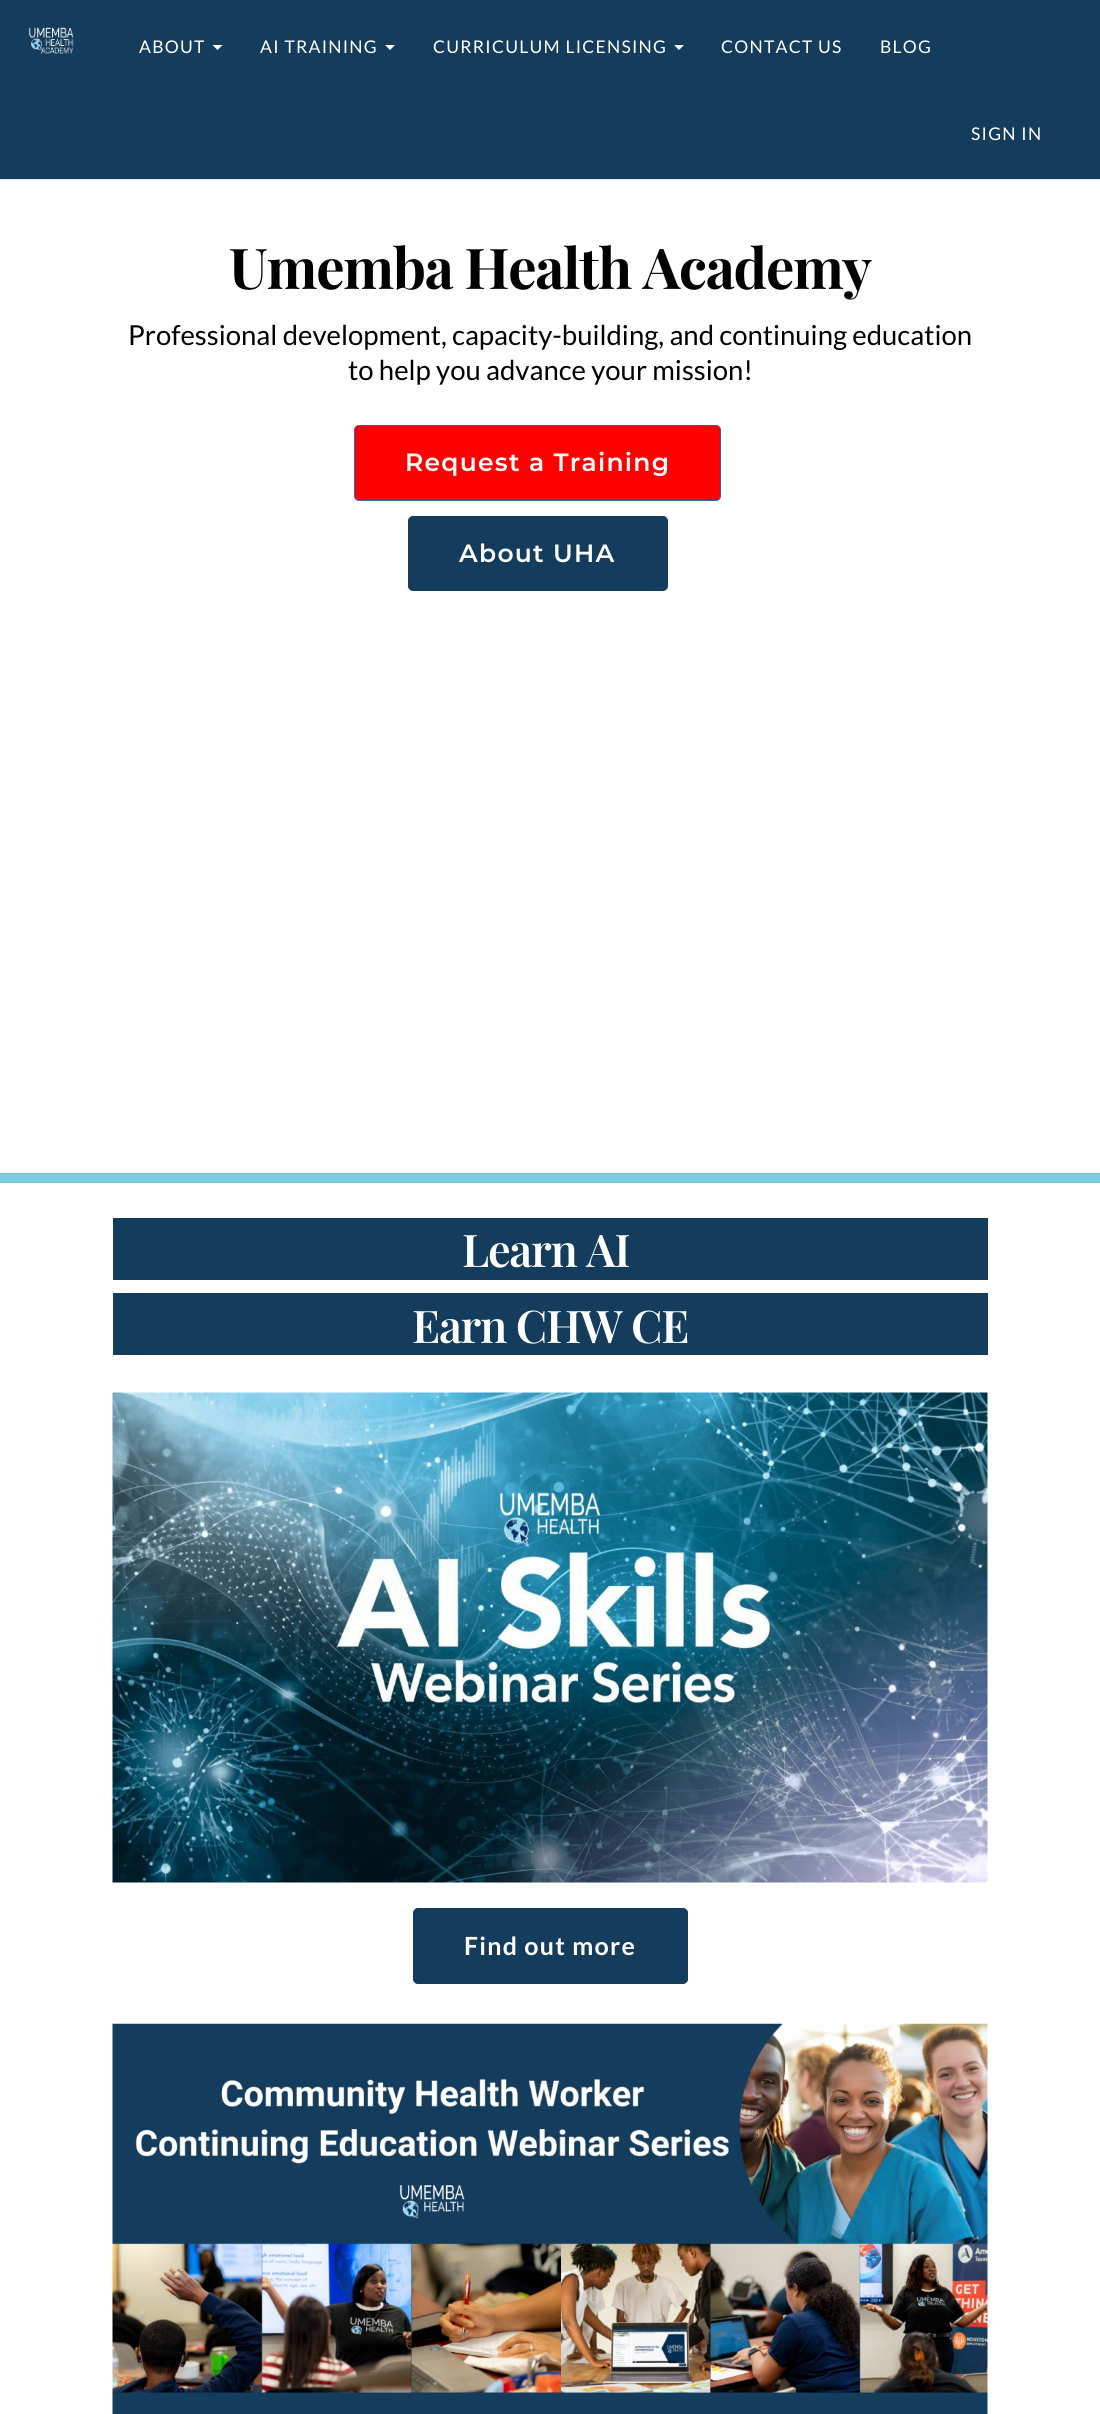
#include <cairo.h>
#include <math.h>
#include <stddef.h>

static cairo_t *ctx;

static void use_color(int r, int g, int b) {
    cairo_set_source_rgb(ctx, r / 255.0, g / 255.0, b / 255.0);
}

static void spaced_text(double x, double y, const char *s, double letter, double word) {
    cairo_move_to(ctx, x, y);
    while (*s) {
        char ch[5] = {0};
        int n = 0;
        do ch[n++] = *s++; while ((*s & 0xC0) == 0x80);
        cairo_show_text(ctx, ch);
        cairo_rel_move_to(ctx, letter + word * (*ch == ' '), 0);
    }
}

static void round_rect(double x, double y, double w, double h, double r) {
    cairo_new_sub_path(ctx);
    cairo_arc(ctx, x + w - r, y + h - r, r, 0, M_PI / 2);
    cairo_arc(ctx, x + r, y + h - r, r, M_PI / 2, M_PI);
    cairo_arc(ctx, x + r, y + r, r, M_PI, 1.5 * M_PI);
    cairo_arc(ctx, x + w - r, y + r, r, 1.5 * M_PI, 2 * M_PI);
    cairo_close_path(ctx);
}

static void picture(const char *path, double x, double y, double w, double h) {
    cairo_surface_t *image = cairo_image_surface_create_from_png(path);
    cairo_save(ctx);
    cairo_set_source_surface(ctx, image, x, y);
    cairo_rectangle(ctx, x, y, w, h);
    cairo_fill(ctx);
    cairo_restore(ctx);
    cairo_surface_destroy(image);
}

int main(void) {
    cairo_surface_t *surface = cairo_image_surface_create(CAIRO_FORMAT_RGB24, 1100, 2414);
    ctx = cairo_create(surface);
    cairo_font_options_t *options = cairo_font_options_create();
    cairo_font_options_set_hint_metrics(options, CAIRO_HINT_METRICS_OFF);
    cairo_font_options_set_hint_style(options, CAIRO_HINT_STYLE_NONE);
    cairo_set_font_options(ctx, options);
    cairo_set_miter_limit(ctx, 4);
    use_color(255, 255, 255);
    cairo_paint(ctx);
    use_color(228, 228, 228);
    cairo_rectangle(ctx, 0, 179, 1100, 1);
    cairo_fill(ctx);
    use_color(19, 60, 93);
    cairo_rectangle(ctx, 0, 0, 1100, 179);
    cairo_fill(ctx);
    picture("img1.png", 29, 27, 45, 27);
    cairo_select_font_face(ctx, "Lato", CAIRO_FONT_SLANT_NORMAL, CAIRO_FONT_WEIGHT_NORMAL);
    cairo_set_font_size(ctx, 17.5);
    use_color(255, 255, 255);
    spaced_text(139, 53, "ABOUT", 1.25, 0);
    cairo_new_path(ctx);
    cairo_move_to(ctx, 212.5, 45);
    cairo_line_to(ctx, 222.5, 45);
    cairo_line_to(ctx, 217.5, 50);
    cairo_close_path(ctx);
    cairo_fill(ctx);
    spaced_text(260, 53, "AI TRAINING", 1.25, 0);
    cairo_new_path(ctx);
    cairo_move_to(ctx, 385, 45);
    cairo_line_to(ctx, 395, 45);
    cairo_line_to(ctx, 390, 50);
    cairo_close_path(ctx);
    cairo_fill(ctx);
    spaced_text(433, 53, "CURRICULUM LICENSING", 1.25, 0);
    cairo_new_path(ctx);
    cairo_move_to(ctx, 674, 45);
    cairo_line_to(ctx, 684, 45);
    cairo_line_to(ctx, 679, 50);
    cairo_close_path(ctx);
    cairo_fill(ctx);
    spaced_text(721, 53, "CONTACT US", 1.25, 0);
    spaced_text(880, 53, "BLOG", 1.25, 0);
    spaced_text(971, 140, "SIGN IN", 1.25, 0);
    cairo_select_font_face(ctx, "Playfair Display", CAIRO_FONT_SLANT_NORMAL, CAIRO_FONT_WEIGHT_BOLD);
    cairo_set_font_size(ctx, 56.25);
    use_color(0, 0, 0);
    spaced_text(229, 289, "Umemba Health Academy", -1.25, 0);
    cairo_select_font_face(ctx, "Lato", CAIRO_FONT_SLANT_NORMAL, CAIRO_FONT_WEIGHT_NORMAL);
    cairo_set_font_size(ctx, 27.5);
    cairo_move_to(ctx, 128, 345);
    cairo_show_text(ctx, "Professional development, capacity-building, and continuing education");
    cairo_move_to(ctx, 348, 380);
    cairo_show_text(ctx, "to help you advance your mission!");
    use_color(255, 0, 0);
    round_rect(354.5, 425.5, 366, 75, 4.5);
    cairo_fill_preserve(ctx);
    use_color(34, 109, 173);
    cairo_set_line_width(ctx, 1);
    cairo_stroke(ctx);
    cairo_select_font_face(ctx, "Montserrat SemiBold", CAIRO_FONT_SLANT_NORMAL, CAIRO_FONT_WEIGHT_NORMAL);
    cairo_set_font_size(ctx, 25);
    use_color(255, 255, 255);
    spaced_text(405, 471, "Request a Training", 1.25, 0);
    use_color(19, 60, 93);
    round_rect(408.5, 516.5, 259, 74, 4.5);
    cairo_fill_preserve(ctx);
    cairo_stroke(ctx);
    use_color(255, 255, 255);
    spaced_text(459, 562, "About UHA", 1.25, 0);
    use_color(125, 202, 218);
    cairo_rectangle(ctx, 0, 1173, 1100, 10);
    cairo_fill(ctx);
    use_color(19, 60, 93);
    cairo_rectangle(ctx, 113, 1218, 875, 62);
    cairo_fill(ctx);
    cairo_select_font_face(ctx, "Playfair Display SemiBold", CAIRO_FONT_SLANT_NORMAL, CAIRO_FONT_WEIGHT_NORMAL);
    cairo_set_font_size(ctx, 45);
    use_color(255, 255, 255);
    spaced_text(462, 1267, "Learn AI", -1.25, 0);
    use_color(19, 60, 93);
    cairo_rectangle(ctx, 113, 1293, 875, 62);
    cairo_fill(ctx);
    use_color(255, 255, 255);
    spaced_text(412, 1343, "Earn CHW CE", -1.25, 0);
    picture("img2.png", 112, 1392, 876, 491);
    use_color(19, 60, 93);
    round_rect(413.5, 1908.5, 274, 75, 4.5);
    cairo_fill_preserve(ctx);
    cairo_stroke(ctx);
    cairo_select_font_face(ctx, "Lato", CAIRO_FONT_SLANT_NORMAL, CAIRO_FONT_WEIGHT_BOLD);
    cairo_set_font_size(ctx, 25);
    use_color(255, 255, 255);
    spaced_text(464, 1955, "Find out more", 1.25, 0);
    picture("img3.png", 112, 2023, 876, 391);
    cairo_surface_write_to_png(surface, "result.png");
    cairo_font_options_destroy(options);
    cairo_destroy(ctx);
    cairo_surface_destroy(surface);
    return 0;
}
